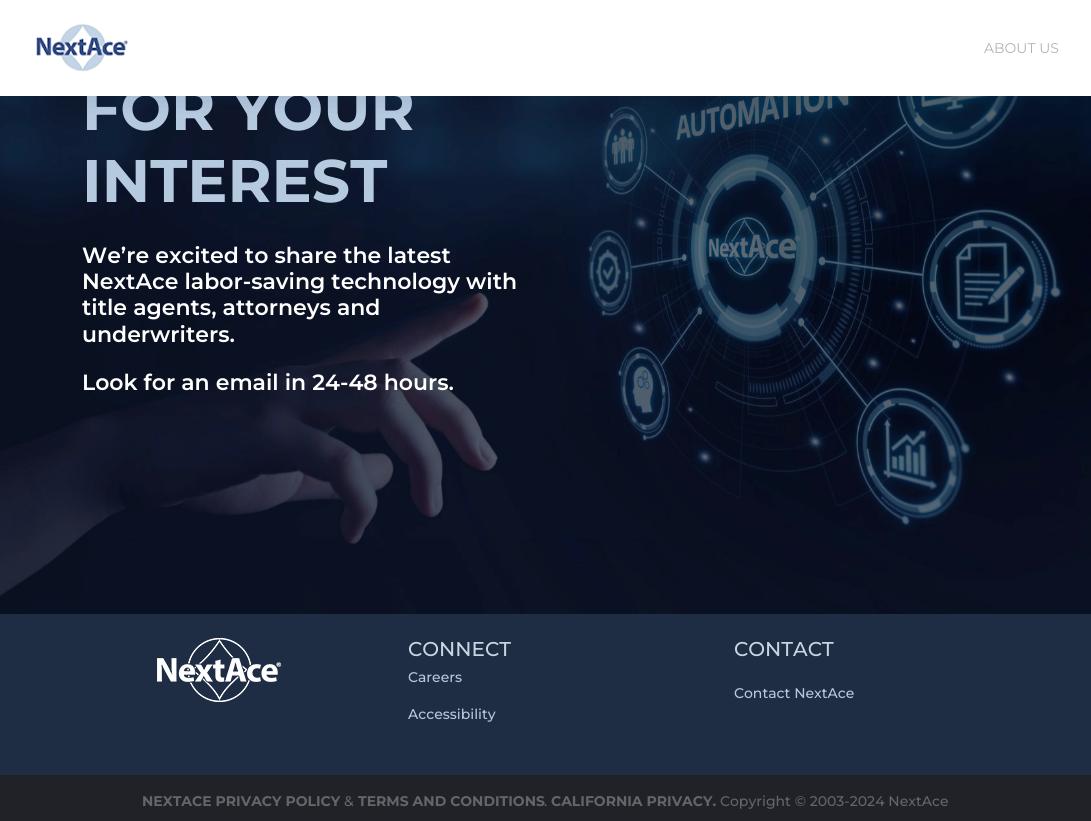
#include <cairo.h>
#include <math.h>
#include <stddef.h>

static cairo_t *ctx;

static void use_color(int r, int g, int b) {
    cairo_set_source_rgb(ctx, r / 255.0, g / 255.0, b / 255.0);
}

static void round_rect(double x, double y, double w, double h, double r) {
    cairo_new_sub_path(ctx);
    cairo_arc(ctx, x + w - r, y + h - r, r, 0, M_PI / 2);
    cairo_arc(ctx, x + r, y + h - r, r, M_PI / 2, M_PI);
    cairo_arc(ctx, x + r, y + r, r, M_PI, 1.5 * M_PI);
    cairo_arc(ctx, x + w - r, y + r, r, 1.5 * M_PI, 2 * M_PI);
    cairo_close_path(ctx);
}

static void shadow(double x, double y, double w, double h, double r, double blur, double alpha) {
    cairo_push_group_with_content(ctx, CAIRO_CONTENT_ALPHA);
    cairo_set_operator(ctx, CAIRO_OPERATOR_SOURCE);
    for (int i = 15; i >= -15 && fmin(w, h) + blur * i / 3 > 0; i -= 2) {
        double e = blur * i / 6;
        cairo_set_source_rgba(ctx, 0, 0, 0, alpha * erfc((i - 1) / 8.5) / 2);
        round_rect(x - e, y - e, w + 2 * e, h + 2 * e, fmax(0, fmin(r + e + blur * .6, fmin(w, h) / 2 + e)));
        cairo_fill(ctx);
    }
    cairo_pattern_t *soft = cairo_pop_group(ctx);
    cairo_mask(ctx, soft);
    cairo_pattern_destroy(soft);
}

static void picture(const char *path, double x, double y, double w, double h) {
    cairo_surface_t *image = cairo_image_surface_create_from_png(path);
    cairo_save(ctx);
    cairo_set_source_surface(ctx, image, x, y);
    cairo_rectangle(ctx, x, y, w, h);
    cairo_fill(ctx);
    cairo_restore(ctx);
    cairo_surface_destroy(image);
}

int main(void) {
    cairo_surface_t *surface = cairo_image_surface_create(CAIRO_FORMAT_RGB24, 1091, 821);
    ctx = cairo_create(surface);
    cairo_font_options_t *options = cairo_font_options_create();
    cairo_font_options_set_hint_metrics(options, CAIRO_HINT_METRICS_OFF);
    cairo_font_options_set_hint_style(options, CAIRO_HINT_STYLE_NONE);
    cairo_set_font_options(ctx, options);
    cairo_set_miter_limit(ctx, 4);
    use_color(33, 34, 40);
    cairo_paint(ctx);
    picture("img2.png", 0, 96, 1091, 518);
    use_color(0, 0, 0);
    shadow(0, 0, 1091, 96, 0, 3.5, 0.1);
    cairo_select_font_face(ctx, "Montserrat Thin", CAIRO_FONT_SLANT_NORMAL, CAIRO_FONT_WEIGHT_NORMAL);
    cairo_set_font_size(ctx, 60);
    use_color(182, 202, 223);
    cairo_move_to(ctx, 82, 130);
    cairo_show_text(ctx, "FOR YOUR");
    use_color(255, 255, 255);
    cairo_rectangle(ctx, 0, 0, 1091, 96);
    cairo_fill(ctx);
    cairo_save(ctx);
    cairo_rectangle(ctx, 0, 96, 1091, 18);
    cairo_clip(ctx);
    use_color(7, 51, 84);
    shadow(0, 0, 1091, 96, 0, 15, 0.17);
    cairo_restore(ctx);
    picture("img1.png", 36, 24, 92, 48);
    cairo_select_font_face(ctx, "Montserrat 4 Thin", CAIRO_FONT_SLANT_NORMAL, CAIRO_FONT_WEIGHT_NORMAL);
    cairo_set_font_size(ctx, 14);
    use_color(179, 179, 179);
    cairo_move_to(ctx, 984, 53);
    cairo_show_text(ctx, "ABOUT US");
    cairo_select_font_face(ctx, "Montserrat Thin", CAIRO_FONT_SLANT_NORMAL, CAIRO_FONT_WEIGHT_NORMAL);
    cairo_set_font_size(ctx, 60);
    use_color(182, 202, 223);
    cairo_move_to(ctx, 82, 202);
    cairo_show_text(ctx, "INTEREST");
    cairo_select_font_face(ctx, "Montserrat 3 Thin", CAIRO_FONT_SLANT_NORMAL, CAIRO_FONT_WEIGHT_NORMAL);
    cairo_set_font_size(ctx, 22);
    use_color(255, 255, 255);
    cairo_move_to(ctx, 82, 263);
    cairo_show_text(ctx, "We’re excited to share the latest");
    cairo_move_to(ctx, 82, 289);
    cairo_show_text(ctx, "NextAce labor-saving technology with");
    cairo_move_to(ctx, 82, 315);
    cairo_show_text(ctx, "title agents, attorneys and");
    cairo_move_to(ctx, 82, 342);
    cairo_show_text(ctx, "underwriters.");
    cairo_move_to(ctx, 82, 390);
    cairo_show_text(ctx, "Look for an email in 24-48 hours.");
    use_color(30, 45, 68);
    cairo_rectangle(ctx, 0, 614, 1091, 161);
    cairo_fill(ctx);
    picture("img3.png", 157, 638, 124, 64);
    cairo_select_font_face(ctx, "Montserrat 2 Thin", CAIRO_FONT_SLANT_NORMAL, CAIRO_FONT_WEIGHT_NORMAL);
    cairo_set_font_size(ctx, 20);
    use_color(200, 214, 225);
    cairo_move_to(ctx, 408, 656);
    cairo_show_text(ctx, "CONNECT");
    cairo_set_font_size(ctx, 14);
    use_color(183, 200, 215);
    cairo_move_to(ctx, 408, 682);
    cairo_show_text(ctx, "Careers");
    cairo_move_to(ctx, 408, 719);
    cairo_show_text(ctx, "Accessibility");
    cairo_set_font_size(ctx, 20);
    use_color(200, 214, 225);
    cairo_move_to(ctx, 734, 656);
    cairo_show_text(ctx, "CONTACT");
    cairo_set_font_size(ctx, 14);
    use_color(183, 200, 215);
    cairo_move_to(ctx, 734, 698);
    cairo_show_text(ctx, "Contact NextAce");
    cairo_select_font_face(ctx, "Montserrat Thin", CAIRO_FONT_SLANT_NORMAL, CAIRO_FONT_WEIGHT_NORMAL);
    use_color(100, 100, 105);
    cairo_move_to(ctx, 142, 806);
    cairo_show_text(ctx, "NEXTACE PRIVACY POLICY");
    cairo_select_font_face(ctx, "Montserrat 2 Thin", CAIRO_FONT_SLANT_NORMAL, CAIRO_FONT_WEIGHT_NORMAL);
    cairo_move_to(ctx, 344, 806);
    cairo_show_text(ctx, "&");
    cairo_select_font_face(ctx, "Montserrat Thin", CAIRO_FONT_SLANT_NORMAL, CAIRO_FONT_WEIGHT_NORMAL);
    cairo_move_to(ctx, 358, 806);
    cairo_show_text(ctx, "TERMS AND CONDITIONS");
    cairo_select_font_face(ctx, "Montserrat 2 Thin", CAIRO_FONT_SLANT_NORMAL, CAIRO_FONT_WEIGHT_NORMAL);
    cairo_move_to(ctx, 544, 806);
    cairo_show_text(ctx, ".");
    cairo_select_font_face(ctx, "Montserrat Thin", CAIRO_FONT_SLANT_NORMAL, CAIRO_FONT_WEIGHT_NORMAL);
    cairo_move_to(ctx, 551, 806);
    cairo_show_text(ctx, "CALIFORNIA PRIVACY.");
    cairo_select_font_face(ctx, "Montserrat 2 Thin", CAIRO_FONT_SLANT_NORMAL, CAIRO_FONT_WEIGHT_NORMAL);
    cairo_move_to(ctx, 720, 806);
    cairo_show_text(ctx, "Copyright © 2003-2024 NextAce");
    cairo_surface_write_to_png(surface, "result.png");
    cairo_font_options_destroy(options);
    cairo_destroy(ctx);
    cairo_surface_destroy(surface);
    return 0;
}
